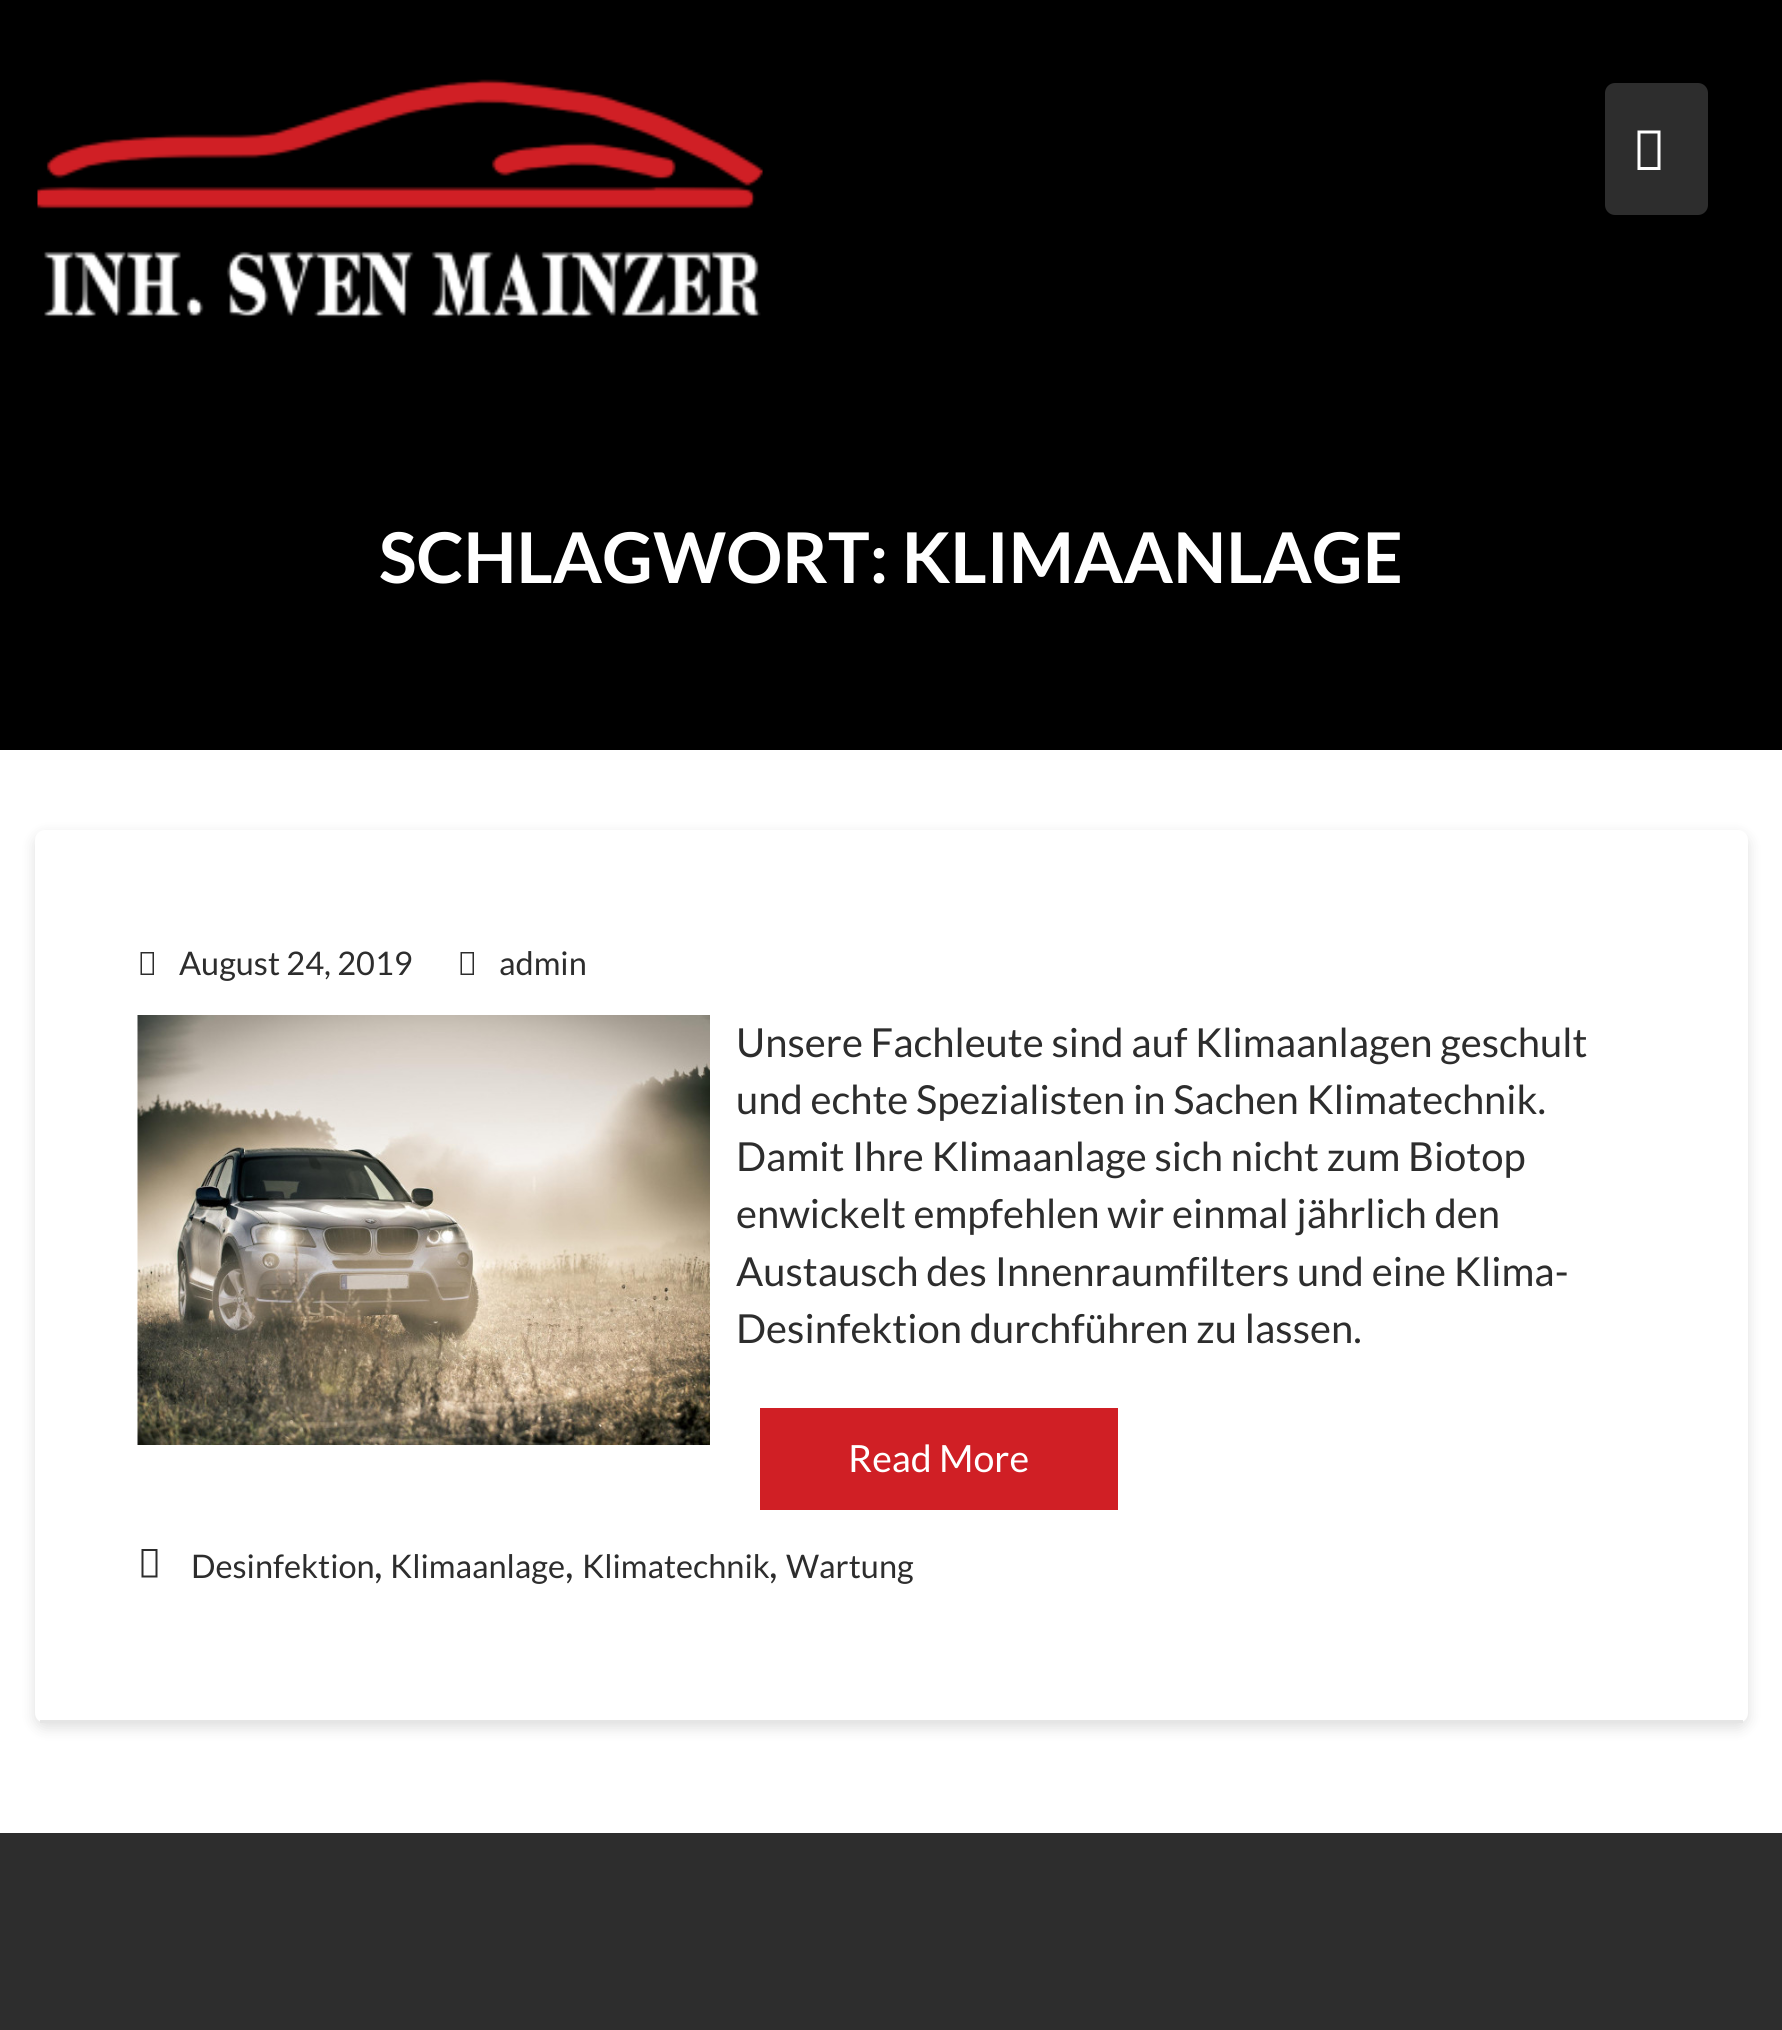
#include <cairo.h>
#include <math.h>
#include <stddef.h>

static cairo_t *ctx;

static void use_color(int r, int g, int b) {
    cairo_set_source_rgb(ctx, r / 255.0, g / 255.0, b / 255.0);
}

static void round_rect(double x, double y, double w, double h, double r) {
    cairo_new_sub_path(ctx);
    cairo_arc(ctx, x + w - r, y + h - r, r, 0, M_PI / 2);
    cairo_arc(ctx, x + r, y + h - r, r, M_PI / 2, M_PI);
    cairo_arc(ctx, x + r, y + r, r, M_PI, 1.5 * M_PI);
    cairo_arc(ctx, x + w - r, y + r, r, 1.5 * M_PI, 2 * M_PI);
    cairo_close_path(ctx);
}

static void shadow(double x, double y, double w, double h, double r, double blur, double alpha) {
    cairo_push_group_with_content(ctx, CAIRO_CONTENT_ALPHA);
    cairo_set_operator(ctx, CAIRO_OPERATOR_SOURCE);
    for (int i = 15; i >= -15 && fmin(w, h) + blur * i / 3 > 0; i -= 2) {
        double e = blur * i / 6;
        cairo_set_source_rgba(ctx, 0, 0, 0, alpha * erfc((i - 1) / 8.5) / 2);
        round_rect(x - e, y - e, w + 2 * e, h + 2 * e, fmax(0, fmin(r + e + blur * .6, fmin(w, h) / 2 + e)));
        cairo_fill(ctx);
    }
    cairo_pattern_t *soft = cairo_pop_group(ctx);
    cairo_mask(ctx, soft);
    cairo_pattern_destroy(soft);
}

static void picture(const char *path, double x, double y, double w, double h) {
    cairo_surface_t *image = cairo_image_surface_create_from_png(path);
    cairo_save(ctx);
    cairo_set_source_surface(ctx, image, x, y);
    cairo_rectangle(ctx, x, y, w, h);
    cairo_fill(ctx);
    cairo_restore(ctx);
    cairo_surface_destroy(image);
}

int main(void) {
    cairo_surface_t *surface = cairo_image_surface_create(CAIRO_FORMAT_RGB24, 1782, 2030);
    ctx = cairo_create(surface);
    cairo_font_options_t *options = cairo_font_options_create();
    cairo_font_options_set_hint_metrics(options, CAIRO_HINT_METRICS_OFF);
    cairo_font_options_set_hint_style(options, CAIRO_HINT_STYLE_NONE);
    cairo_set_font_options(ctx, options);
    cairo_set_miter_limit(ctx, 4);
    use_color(255, 255, 255);
    cairo_paint(ctx);
    use_color(0, 0, 0);
    cairo_rectangle(ctx, 0, 0, 1782, 750);
    cairo_fill(ctx);
    picture("img1.png", 37, 79, 726, 239);
    use_color(45, 45, 45);
    round_rect(1605, 83, 103, 132, 10);
    cairo_fill(ctx);
    use_color(255, 255, 255);
    cairo_new_path(ctx);
    cairo_move_to(ctx, 1637.5, 170);
    cairo_line_to(ctx, 1637.5, 130.5);
    cairo_line_to(ctx, 1660.5, 130.5);
    cairo_line_to(ctx, 1660.5, 170);
    cairo_close_path(ctx);
    cairo_move_to(ctx, 1640.5, 167);
    cairo_line_to(ctx, 1657.5, 167);
    cairo_line_to(ctx, 1657.5, 133.5);
    cairo_line_to(ctx, 1640.5, 133.5);
    cairo_close_path(ctx);
    cairo_fill(ctx);
    cairo_select_font_face(ctx, "Lato", CAIRO_FONT_SLANT_NORMAL, CAIRO_FONT_WEIGHT_BOLD);
    cairo_set_font_size(ctx, 70);
    cairo_move_to(ctx, 379, 583);
    cairo_show_text(ctx, "SCHLAGWORT: KLIMAANLAGE");
    use_color(0, 0, 0);
    shadow(35, 835, 1713, 893, 10, 7, 0.13);
    use_color(255, 255, 255);
    round_rect(35, 830, 1713, 893, 10);
    cairo_fill(ctx);
    use_color(229, 229, 229);
    cairo_rectangle(ctx, 40, 1720, 1703, 3);
    cairo_fill(ctx);
    use_color(45, 45, 45);
    cairo_new_path(ctx);
    cairo_move_to(ctx, 140.5, 975);
    cairo_line_to(ctx, 140.5, 952);
    cairo_line_to(ctx, 154, 952);
    cairo_line_to(ctx, 154, 975);
    cairo_close_path(ctx);
    cairo_move_to(ctx, 142, 973.5);
    cairo_line_to(ctx, 152.5, 973.5);
    cairo_line_to(ctx, 152.5, 953.5);
    cairo_line_to(ctx, 142, 953.5);
    cairo_close_path(ctx);
    cairo_fill(ctx);
    cairo_select_font_face(ctx, "Lato", CAIRO_FONT_SLANT_NORMAL, CAIRO_FONT_WEIGHT_NORMAL);
    cairo_set_font_size(ctx, 32.5);
    cairo_move_to(ctx, 179, 975);
    cairo_show_text(ctx, "August 24, 2019");
    cairo_new_path(ctx);
    cairo_move_to(ctx, 460.5, 975);
    cairo_line_to(ctx, 460.5, 952);
    cairo_line_to(ctx, 474, 952);
    cairo_line_to(ctx, 474, 975);
    cairo_close_path(ctx);
    cairo_move_to(ctx, 462, 973.5);
    cairo_line_to(ctx, 472.5, 973.5);
    cairo_line_to(ctx, 472.5, 953.5);
    cairo_line_to(ctx, 462, 953.5);
    cairo_close_path(ctx);
    cairo_fill(ctx);
    cairo_move_to(ctx, 499, 975);
    cairo_show_text(ctx, "admin");
    picture("img2.png", 137, 1015, 573, 430);
    cairo_set_font_size(ctx, 40);
    cairo_move_to(ctx, 736, 1057);
    cairo_show_text(ctx, "Unsere Fachleute sind auf Klimaanlagen geschult");
    cairo_move_to(ctx, 736, 1114);
    cairo_show_text(ctx, "und echte Spezialisten in Sachen Klimatechnik.");
    cairo_move_to(ctx, 736, 1171);
    cairo_show_text(ctx, "Damit Ihre Klimaanlage sich nicht zum Biotop");
    cairo_move_to(ctx, 736, 1228);
    cairo_show_text(ctx, "enwickelt empfehlen wir einmal jährlich den");
    cairo_move_to(ctx, 736, 1286);
    cairo_show_text(ctx, "Austausch des Innenraumfilters und eine Klima-");
    cairo_move_to(ctx, 736, 1343);
    cairo_show_text(ctx, "Desinfektion durchführen zu lassen.");
    use_color(208, 31, 37);
    cairo_rectangle(ctx, 760, 1408, 358, 102);
    cairo_fill(ctx);
    cairo_set_font_size(ctx, 37.5);
    use_color(255, 255, 255);
    cairo_move_to(ctx, 848, 1472);
    cairo_show_text(ctx, "Read More");
    use_color(45, 45, 45);
    cairo_new_path(ctx);
    cairo_move_to(ctx, 141.5, 1577.5);
    cairo_line_to(ctx, 141.5, 1549);
    cairo_line_to(ctx, 157.5, 1549);
    cairo_line_to(ctx, 157.5, 1577.5);
    cairo_close_path(ctx);
    cairo_move_to(ctx, 143.5, 1575.5);
    cairo_line_to(ctx, 155.5, 1575.5);
    cairo_line_to(ctx, 155.5, 1551);
    cairo_line_to(ctx, 143.5, 1551);
    cairo_close_path(ctx);
    cairo_fill(ctx);
    cairo_set_font_size(ctx, 32.5);
    cairo_move_to(ctx, 191, 1578);
    cairo_show_text(ctx, "Desinfektion");
    cairo_set_font_size(ctx, 40);
    cairo_move_to(ctx, 374, 1578);
    cairo_show_text(ctx, ",");
    cairo_set_font_size(ctx, 32.5);
    cairo_move_to(ctx, 390, 1578);
    cairo_show_text(ctx, "Klimaanlage");
    cairo_set_font_size(ctx, 40);
    cairo_move_to(ctx, 565, 1578);
    cairo_show_text(ctx, ",");
    cairo_set_font_size(ctx, 32.5);
    cairo_move_to(ctx, 582, 1578);
    cairo_show_text(ctx, "Klimatechnik");
    cairo_set_font_size(ctx, 40);
    cairo_move_to(ctx, 769, 1578);
    cairo_show_text(ctx, ",");
    cairo_set_font_size(ctx, 32.5);
    cairo_move_to(ctx, 786, 1578);
    cairo_show_text(ctx, "Wartung");
    cairo_rectangle(ctx, 0, 1833, 1782, 197);
    cairo_fill(ctx);
    cairo_surface_write_to_png(surface, "result.png");
    cairo_font_options_destroy(options);
    cairo_destroy(ctx);
    cairo_surface_destroy(surface);
    return 0;
}
